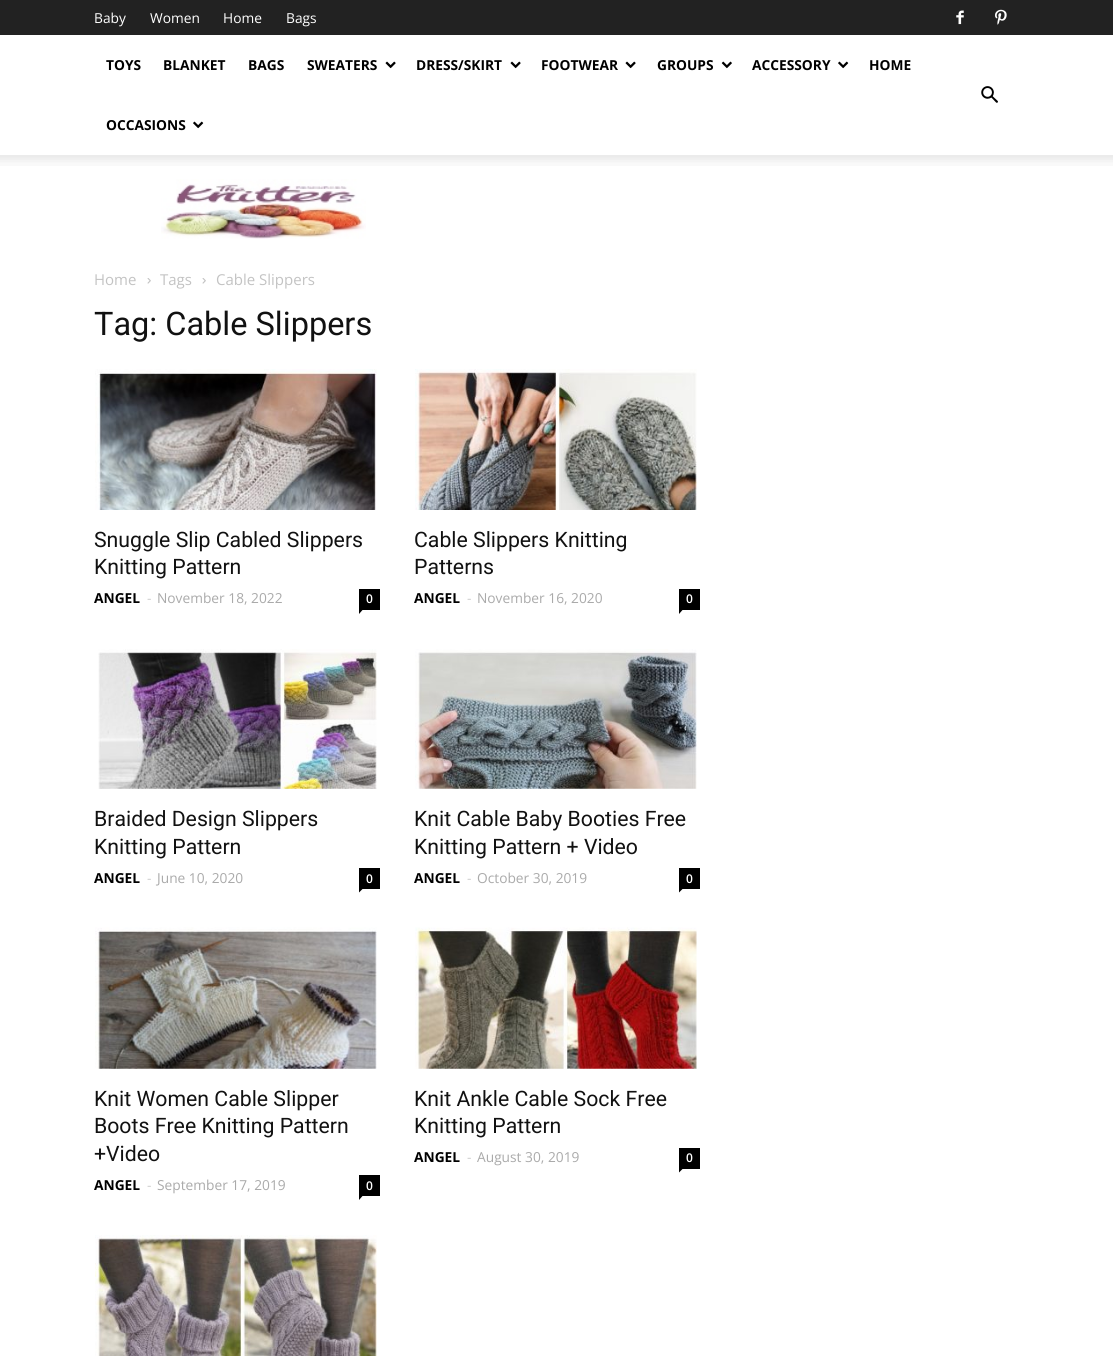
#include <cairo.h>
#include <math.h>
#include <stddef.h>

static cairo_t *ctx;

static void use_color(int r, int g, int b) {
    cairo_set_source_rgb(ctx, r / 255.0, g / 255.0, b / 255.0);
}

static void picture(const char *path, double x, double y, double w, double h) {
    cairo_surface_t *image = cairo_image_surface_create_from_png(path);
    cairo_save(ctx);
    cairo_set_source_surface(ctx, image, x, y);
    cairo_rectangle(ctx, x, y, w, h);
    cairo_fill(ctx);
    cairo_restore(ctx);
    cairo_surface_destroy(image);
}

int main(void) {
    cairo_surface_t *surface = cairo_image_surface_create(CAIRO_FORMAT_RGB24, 1113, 1356);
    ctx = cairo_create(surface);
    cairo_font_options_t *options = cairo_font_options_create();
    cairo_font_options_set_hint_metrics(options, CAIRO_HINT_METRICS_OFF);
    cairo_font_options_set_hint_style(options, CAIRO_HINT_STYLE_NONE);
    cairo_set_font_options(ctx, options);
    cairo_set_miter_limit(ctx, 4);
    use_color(255, 255, 255);
    cairo_paint(ctx);
    use_color(34, 34, 34);
    cairo_rectangle(ctx, 0, 0, 1113, 35);
    cairo_fill(ctx);
    cairo_select_font_face(ctx, "Open Sans", CAIRO_FONT_SLANT_NORMAL, CAIRO_FONT_WEIGHT_NORMAL);
    cairo_set_font_size(ctx, 13.75);
    use_color(255, 255, 255);
    cairo_move_to(ctx, 94, 23);
    cairo_show_text(ctx, "Baby");
    cairo_move_to(ctx, 150, 23);
    cairo_show_text(ctx, "Women");
    cairo_move_to(ctx, 223, 23);
    cairo_show_text(ctx, "Home");
    cairo_move_to(ctx, 286, 23);
    cairo_show_text(ctx, "Bags");
    picture("img1.png", 956, 10, 8, 15);
    picture("img2.png", 995, 9, 12, 16);
    cairo_select_font_face(ctx, "Open Sans", CAIRO_FONT_SLANT_NORMAL, CAIRO_FONT_WEIGHT_BOLD);
    use_color(0, 0, 0);
    cairo_move_to(ctx, 106, 70);
    cairo_show_text(ctx, "TOYS");
    cairo_move_to(ctx, 163, 70);
    cairo_show_text(ctx, "BLANKET");
    cairo_move_to(ctx, 248, 70);
    cairo_show_text(ctx, "BAGS");
    cairo_move_to(ctx, 307, 70);
    cairo_show_text(ctx, "SWEATERS");
    picture("img3.png", 385, 61, 11, 8);
    cairo_move_to(ctx, 416, 70);
    cairo_show_text(ctx, "DRESS/SKIRT");
    picture("img3.png", 510, 61, 11, 8);
    cairo_move_to(ctx, 541, 70);
    cairo_show_text(ctx, "FOOTWEAR");
    picture("img3.png", 625, 61, 11, 8);
    cairo_move_to(ctx, 657, 70);
    cairo_show_text(ctx, "GROUPS");
    picture("img4.png", 721, 61, 11, 8);
    cairo_move_to(ctx, 752, 70);
    cairo_show_text(ctx, "ACCESSORY");
    picture("img5.png", 838, 61, 11, 8);
    cairo_move_to(ctx, 869, 70);
    cairo_show_text(ctx, "HOME");
    cairo_move_to(ctx, 106, 130);
    cairo_show_text(ctx, "OCCASIONS");
    picture("img5.png", 193, 121, 11, 8);
    picture("img6.png", 981, 86, 17, 17);
    picture("img7.png", 0, 155, 1113, 11);
    picture("img8.png", 161, 179, 205, 60);
    cairo_select_font_face(ctx, "Open Sans", CAIRO_FONT_SLANT_NORMAL, CAIRO_FONT_WEIGHT_NORMAL);
    cairo_set_font_size(ctx, 15);
    use_color(195, 195, 195);
    cairo_move_to(ctx, 94, 285);
    cairo_show_text(ctx, "Home");
    picture("img9.png", 147, 278, 4, 6);
    cairo_move_to(ctx, 160, 285);
    cairo_show_text(ctx, "Tags");
    picture("img9.png", 202, 278, 4, 6);
    cairo_move_to(ctx, 216, 285);
    cairo_show_text(ctx, "Cable Slippers");
    cairo_select_font_face(ctx, "Roboto", CAIRO_FONT_SLANT_NORMAL, CAIRO_FONT_WEIGHT_NORMAL);
    cairo_set_font_size(ctx, 32.5);
    use_color(17, 17, 17);
    cairo_move_to(ctx, 94, 335);
    cairo_show_text(ctx, "Tag: Cable Slippers");
    picture("img10.png", 95, 369, 282, 141);
    cairo_set_font_size(ctx, 21.25);
    cairo_move_to(ctx, 94, 547);
    cairo_show_text(ctx, "Snuggle Slip Cabled Slippers");
    cairo_move_to(ctx, 94, 574);
    cairo_show_text(ctx, "Knitting Pattern");
    cairo_select_font_face(ctx, "Open Sans", CAIRO_FONT_SLANT_NORMAL, CAIRO_FONT_WEIGHT_BOLD);
    cairo_set_font_size(ctx, 13.75);
    use_color(0, 0, 0);
    cairo_move_to(ctx, 94, 603);
    cairo_show_text(ctx, "ANGEL");
    cairo_select_font_face(ctx, "Open Sans", CAIRO_FONT_SLANT_NORMAL, CAIRO_FONT_WEIGHT_NORMAL);
    use_color(204, 204, 204);
    cairo_move_to(ctx, 147, 603);
    cairo_show_text(ctx, "-");
    use_color(170, 170, 170);
    cairo_move_to(ctx, 157, 603);
    cairo_show_text(ctx, "November 18, 2022");
    use_color(0, 0, 0);
    cairo_rectangle(ctx, 359, 589, 21, 21);
    cairo_fill(ctx);
    cairo_select_font_face(ctx, "Open Sans SemiBold", CAIRO_FONT_SLANT_NORMAL, CAIRO_FONT_WEIGHT_NORMAL);
    cairo_set_font_size(ctx, 12);
    use_color(255, 255, 255);
    cairo_move_to(ctx, 366, 603);
    cairo_show_text(ctx, "0");
    use_color(0, 0, 0);
    cairo_new_path(ctx);
    cairo_move_to(ctx, 359, 610);
    cairo_line_to(ctx, 362.5, 610);
    cairo_line_to(ctx, 359, 614);
    cairo_close_path(ctx);
    cairo_fill(ctx);
    picture("img11.png", 415, 369, 282, 141);
    cairo_select_font_face(ctx, "Roboto", CAIRO_FONT_SLANT_NORMAL, CAIRO_FONT_WEIGHT_NORMAL);
    cairo_set_font_size(ctx, 21.25);
    use_color(17, 17, 17);
    cairo_move_to(ctx, 414, 547);
    cairo_show_text(ctx, "Cable Slippers Knitting");
    cairo_move_to(ctx, 414, 574);
    cairo_show_text(ctx, "Patterns");
    cairo_select_font_face(ctx, "Open Sans", CAIRO_FONT_SLANT_NORMAL, CAIRO_FONT_WEIGHT_BOLD);
    cairo_set_font_size(ctx, 13.75);
    use_color(0, 0, 0);
    cairo_move_to(ctx, 414, 603);
    cairo_show_text(ctx, "ANGEL");
    cairo_select_font_face(ctx, "Open Sans", CAIRO_FONT_SLANT_NORMAL, CAIRO_FONT_WEIGHT_NORMAL);
    use_color(204, 204, 204);
    cairo_move_to(ctx, 467, 603);
    cairo_show_text(ctx, "-");
    use_color(170, 170, 170);
    cairo_move_to(ctx, 477, 603);
    cairo_show_text(ctx, "November 16, 2020");
    use_color(0, 0, 0);
    cairo_rectangle(ctx, 679, 589, 21, 21);
    cairo_fill(ctx);
    cairo_select_font_face(ctx, "Open Sans SemiBold", CAIRO_FONT_SLANT_NORMAL, CAIRO_FONT_WEIGHT_NORMAL);
    cairo_set_font_size(ctx, 12);
    use_color(255, 255, 255);
    cairo_move_to(ctx, 686, 603);
    cairo_show_text(ctx, "0");
    use_color(0, 0, 0);
    cairo_new_path(ctx);
    cairo_move_to(ctx, 679, 610);
    cairo_line_to(ctx, 682.5, 610);
    cairo_line_to(ctx, 679, 614);
    cairo_close_path(ctx);
    cairo_fill(ctx);
    picture("img12.png", 98, 649, 279, 140);
    cairo_select_font_face(ctx, "Roboto", CAIRO_FONT_SLANT_NORMAL, CAIRO_FONT_WEIGHT_NORMAL);
    cairo_set_font_size(ctx, 21.25);
    use_color(17, 17, 17);
    cairo_move_to(ctx, 94, 826);
    cairo_show_text(ctx, "Braided Design Slippers");
    cairo_move_to(ctx, 94, 854);
    cairo_show_text(ctx, "Knitting Pattern");
    cairo_select_font_face(ctx, "Open Sans", CAIRO_FONT_SLANT_NORMAL, CAIRO_FONT_WEIGHT_BOLD);
    cairo_set_font_size(ctx, 13.75);
    use_color(0, 0, 0);
    cairo_move_to(ctx, 94, 883);
    cairo_show_text(ctx, "ANGEL");
    cairo_select_font_face(ctx, "Open Sans", CAIRO_FONT_SLANT_NORMAL, CAIRO_FONT_WEIGHT_NORMAL);
    use_color(204, 204, 204);
    cairo_move_to(ctx, 147, 883);
    cairo_show_text(ctx, "-");
    use_color(170, 170, 170);
    cairo_move_to(ctx, 157, 883);
    cairo_show_text(ctx, "June 10, 2020");
    use_color(0, 0, 0);
    cairo_rectangle(ctx, 359, 868, 21, 21);
    cairo_fill(ctx);
    cairo_select_font_face(ctx, "Open Sans SemiBold", CAIRO_FONT_SLANT_NORMAL, CAIRO_FONT_WEIGHT_NORMAL);
    cairo_set_font_size(ctx, 12);
    use_color(255, 255, 255);
    cairo_move_to(ctx, 366, 883);
    cairo_show_text(ctx, "0");
    use_color(0, 0, 0);
    cairo_new_path(ctx);
    cairo_move_to(ctx, 359, 889);
    cairo_line_to(ctx, 362.5, 889);
    cairo_line_to(ctx, 359, 892.5);
    cairo_close_path(ctx);
    cairo_fill(ctx);
    picture("img13.png", 415, 649, 282, 140);
    cairo_select_font_face(ctx, "Roboto", CAIRO_FONT_SLANT_NORMAL, CAIRO_FONT_WEIGHT_NORMAL);
    cairo_set_font_size(ctx, 21.25);
    use_color(17, 17, 17);
    cairo_move_to(ctx, 414, 826);
    cairo_show_text(ctx, "Knit Cable Baby Booties Free");
    cairo_move_to(ctx, 414, 854);
    cairo_show_text(ctx, "Knitting Pattern + Video");
    cairo_select_font_face(ctx, "Open Sans", CAIRO_FONT_SLANT_NORMAL, CAIRO_FONT_WEIGHT_BOLD);
    cairo_set_font_size(ctx, 13.75);
    use_color(0, 0, 0);
    cairo_move_to(ctx, 414, 883);
    cairo_show_text(ctx, "ANGEL");
    cairo_select_font_face(ctx, "Open Sans", CAIRO_FONT_SLANT_NORMAL, CAIRO_FONT_WEIGHT_NORMAL);
    use_color(204, 204, 204);
    cairo_move_to(ctx, 467, 883);
    cairo_show_text(ctx, "-");
    use_color(170, 170, 170);
    cairo_move_to(ctx, 477, 883);
    cairo_show_text(ctx, "October 30, 2019");
    use_color(0, 0, 0);
    cairo_rectangle(ctx, 679, 868, 21, 21);
    cairo_fill(ctx);
    cairo_select_font_face(ctx, "Open Sans SemiBold", CAIRO_FONT_SLANT_NORMAL, CAIRO_FONT_WEIGHT_NORMAL);
    cairo_set_font_size(ctx, 12);
    use_color(255, 255, 255);
    cairo_move_to(ctx, 686, 883);
    cairo_show_text(ctx, "0");
    use_color(0, 0, 0);
    cairo_new_path(ctx);
    cairo_move_to(ctx, 679, 889);
    cairo_line_to(ctx, 682.5, 889);
    cairo_line_to(ctx, 679, 892.5);
    cairo_close_path(ctx);
    cairo_fill(ctx);
    picture("img14.png", 95, 927, 282, 142);
    cairo_select_font_face(ctx, "Roboto", CAIRO_FONT_SLANT_NORMAL, CAIRO_FONT_WEIGHT_NORMAL);
    cairo_set_font_size(ctx, 21.25);
    use_color(17, 17, 17);
    cairo_move_to(ctx, 94, 1106);
    cairo_show_text(ctx, "Knit Women Cable Slipper");
    cairo_move_to(ctx, 94, 1133);
    cairo_show_text(ctx, "Boots Free Knitting Pattern");
    cairo_move_to(ctx, 94, 1161);
    cairo_show_text(ctx, "+Video");
    cairo_select_font_face(ctx, "Open Sans", CAIRO_FONT_SLANT_NORMAL, CAIRO_FONT_WEIGHT_BOLD);
    cairo_set_font_size(ctx, 13.75);
    use_color(0, 0, 0);
    cairo_move_to(ctx, 94, 1190);
    cairo_show_text(ctx, "ANGEL");
    cairo_select_font_face(ctx, "Open Sans", CAIRO_FONT_SLANT_NORMAL, CAIRO_FONT_WEIGHT_NORMAL);
    use_color(204, 204, 204);
    cairo_move_to(ctx, 147, 1190);
    cairo_show_text(ctx, "-");
    use_color(170, 170, 170);
    cairo_move_to(ctx, 157, 1190);
    cairo_show_text(ctx, "September 17, 2019");
    use_color(0, 0, 0);
    cairo_rectangle(ctx, 359, 1175, 21, 21);
    cairo_fill(ctx);
    cairo_select_font_face(ctx, "Open Sans SemiBold", CAIRO_FONT_SLANT_NORMAL, CAIRO_FONT_WEIGHT_NORMAL);
    cairo_set_font_size(ctx, 12);
    use_color(255, 255, 255);
    cairo_move_to(ctx, 366, 1190);
    cairo_show_text(ctx, "0");
    use_color(0, 0, 0);
    cairo_new_path(ctx);
    cairo_move_to(ctx, 359, 1196);
    cairo_line_to(ctx, 362.5, 1196);
    cairo_line_to(ctx, 359, 1200);
    cairo_close_path(ctx);
    cairo_fill(ctx);
    picture("img15.png", 415, 927, 282, 142);
    cairo_select_font_face(ctx, "Roboto", CAIRO_FONT_SLANT_NORMAL, CAIRO_FONT_WEIGHT_NORMAL);
    cairo_set_font_size(ctx, 21.25);
    use_color(17, 17, 17);
    cairo_move_to(ctx, 414, 1106);
    cairo_show_text(ctx, "Knit Ankle Cable Sock Free");
    cairo_move_to(ctx, 414, 1133);
    cairo_show_text(ctx, "Knitting Pattern");
    cairo_select_font_face(ctx, "Open Sans", CAIRO_FONT_SLANT_NORMAL, CAIRO_FONT_WEIGHT_BOLD);
    cairo_set_font_size(ctx, 13.75);
    use_color(0, 0, 0);
    cairo_move_to(ctx, 414, 1162);
    cairo_show_text(ctx, "ANGEL");
    cairo_select_font_face(ctx, "Open Sans", CAIRO_FONT_SLANT_NORMAL, CAIRO_FONT_WEIGHT_NORMAL);
    use_color(204, 204, 204);
    cairo_move_to(ctx, 467, 1162);
    cairo_show_text(ctx, "-");
    use_color(170, 170, 170);
    cairo_move_to(ctx, 477, 1162);
    cairo_show_text(ctx, "August 30, 2019");
    use_color(0, 0, 0);
    cairo_rectangle(ctx, 679, 1148, 21, 21);
    cairo_fill(ctx);
    cairo_select_font_face(ctx, "Open Sans SemiBold", CAIRO_FONT_SLANT_NORMAL, CAIRO_FONT_WEIGHT_NORMAL);
    cairo_set_font_size(ctx, 12);
    use_color(255, 255, 255);
    cairo_move_to(ctx, 686, 1162);
    cairo_show_text(ctx, "0");
    use_color(0, 0, 0);
    cairo_new_path(ctx);
    cairo_move_to(ctx, 679, 1169);
    cairo_line_to(ctx, 682.5, 1169);
    cairo_line_to(ctx, 679, 1172.5);
    cairo_close_path(ctx);
    cairo_fill(ctx);
    picture("img16.png", 95, 1235, 282, 121);
    cairo_surface_write_to_png(surface, "result.png");
    cairo_font_options_destroy(options);
    cairo_destroy(ctx);
    cairo_surface_destroy(surface);
    return 0;
}
